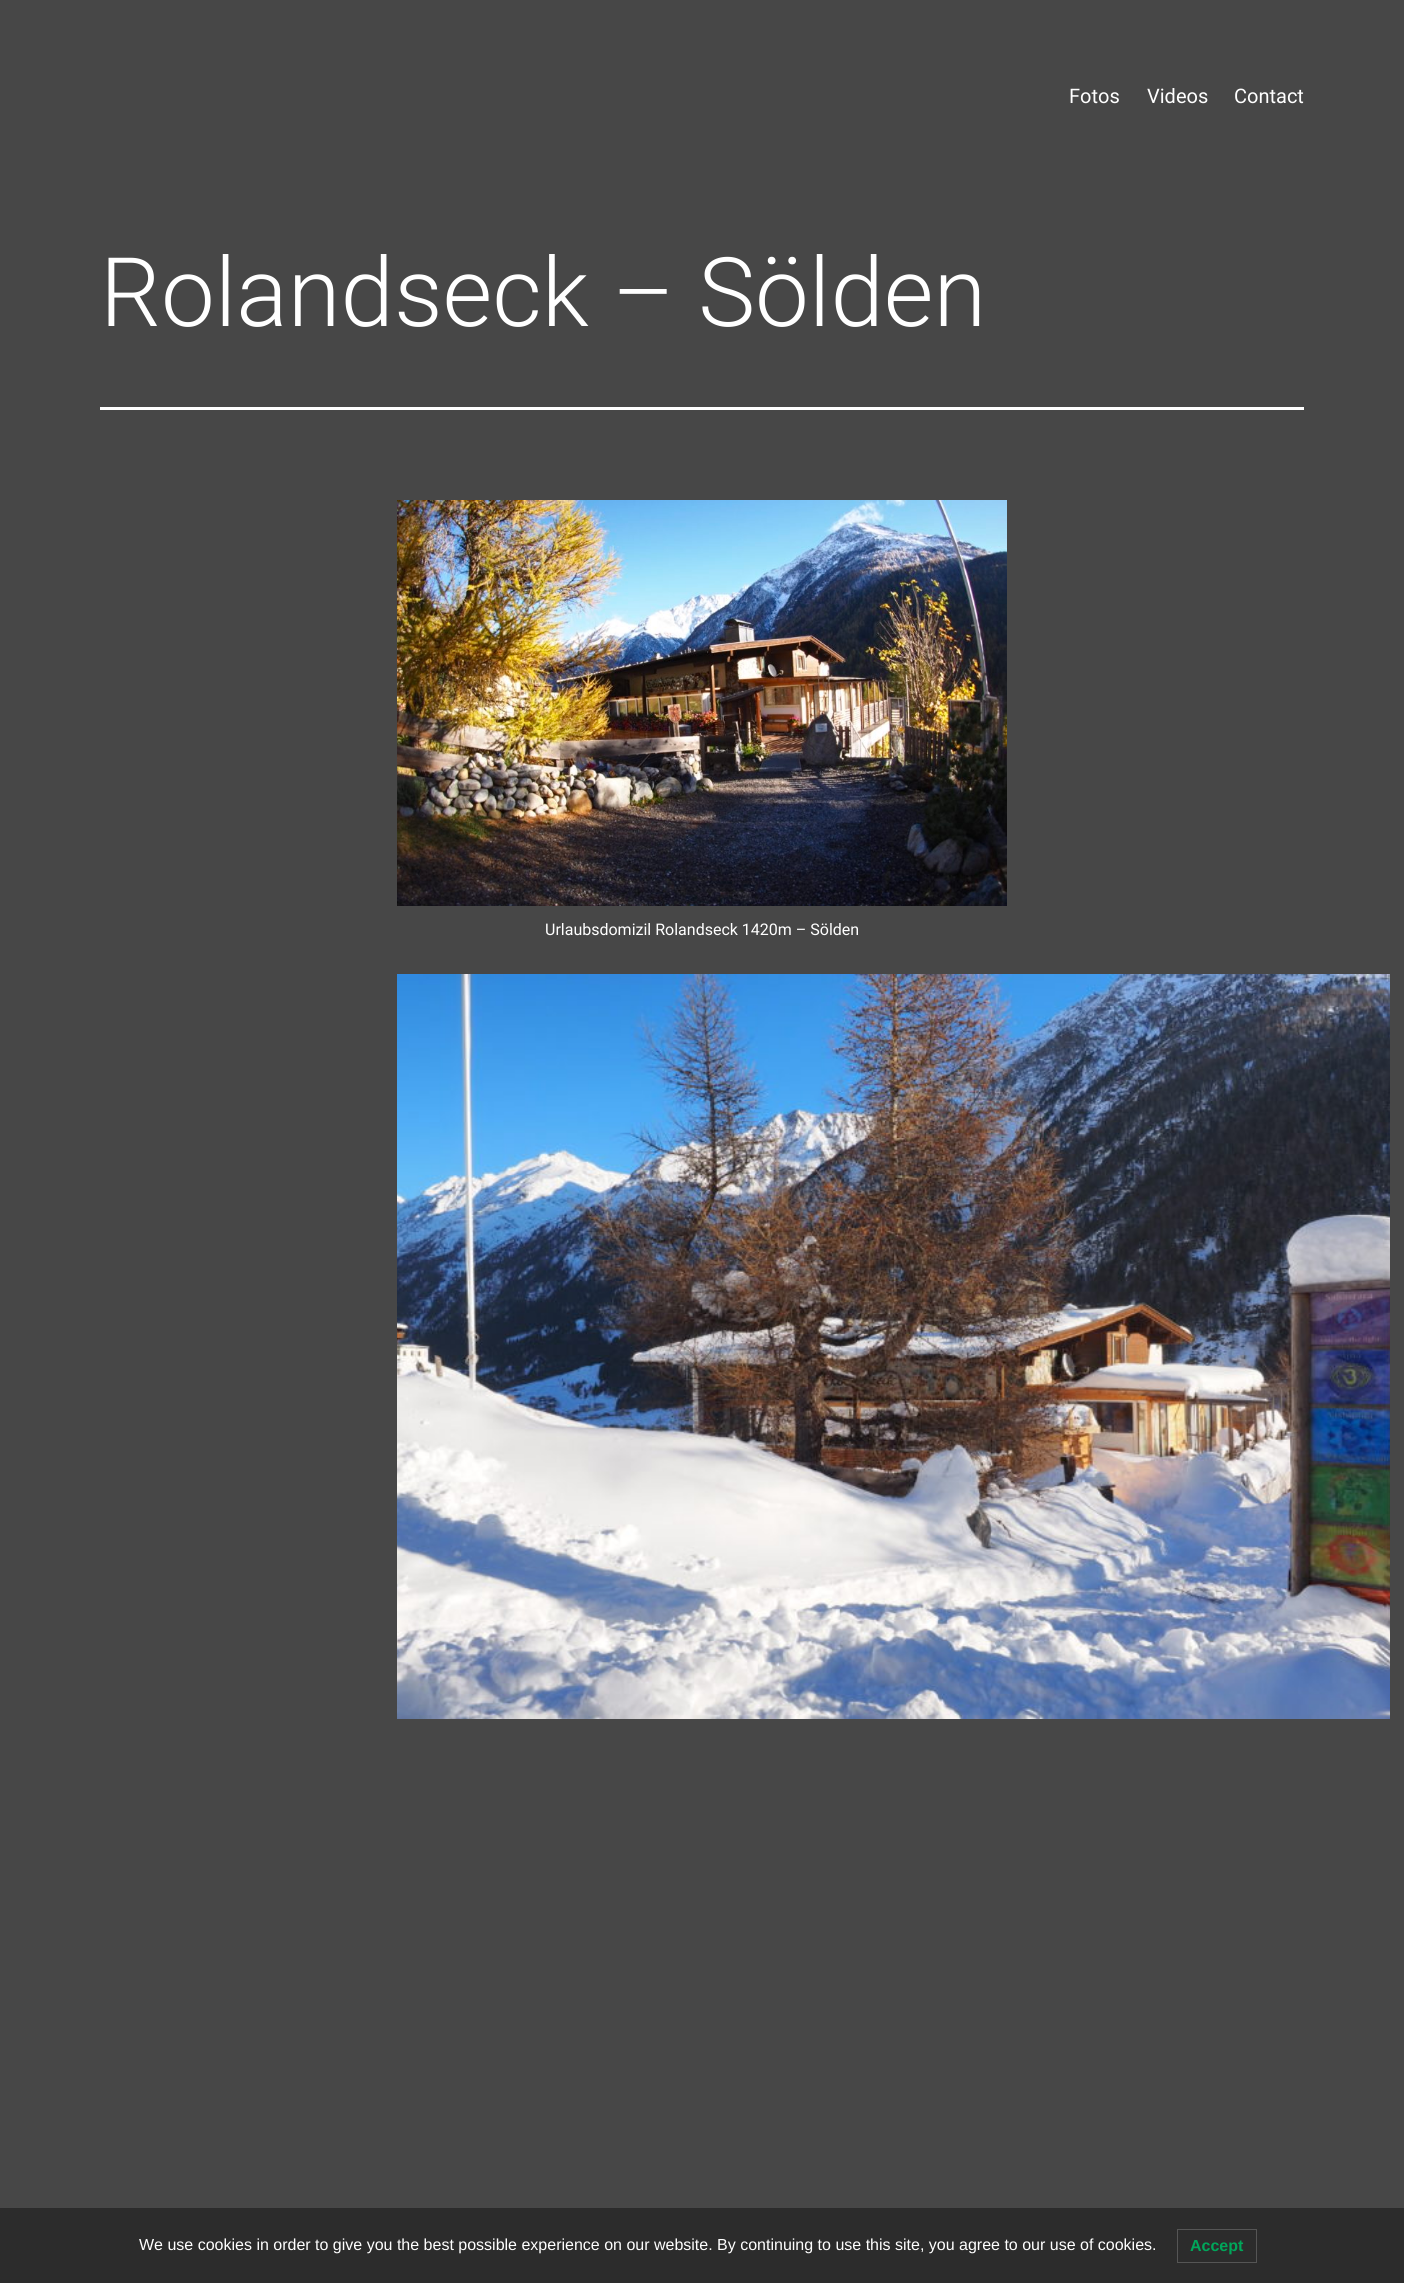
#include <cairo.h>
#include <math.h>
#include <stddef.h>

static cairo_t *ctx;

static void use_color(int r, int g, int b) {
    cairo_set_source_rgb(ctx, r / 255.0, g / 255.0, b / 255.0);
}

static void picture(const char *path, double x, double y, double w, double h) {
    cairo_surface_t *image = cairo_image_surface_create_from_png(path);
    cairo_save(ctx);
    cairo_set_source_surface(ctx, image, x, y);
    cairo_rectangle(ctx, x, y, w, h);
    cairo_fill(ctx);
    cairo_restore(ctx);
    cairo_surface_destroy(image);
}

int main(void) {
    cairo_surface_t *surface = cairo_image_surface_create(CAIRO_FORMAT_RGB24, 1404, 2283);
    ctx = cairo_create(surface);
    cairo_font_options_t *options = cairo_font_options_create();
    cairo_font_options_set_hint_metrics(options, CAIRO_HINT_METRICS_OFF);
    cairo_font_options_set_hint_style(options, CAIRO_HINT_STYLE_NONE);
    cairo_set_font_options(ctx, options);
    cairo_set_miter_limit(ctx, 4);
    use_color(71, 71, 71);
    cairo_paint(ctx);
    cairo_select_font_face(ctx, "Roboto", CAIRO_FONT_SLANT_NORMAL, CAIRO_FONT_WEIGHT_NORMAL);
    cairo_set_font_size(ctx, 20);
    use_color(255, 255, 255);
    cairo_move_to(ctx, 1069, 103);
    cairo_show_text(ctx, "Fotos");
    cairo_move_to(ctx, 1147, 103);
    cairo_show_text(ctx, "Videos");
    cairo_move_to(ctx, 1234, 103);
    cairo_show_text(ctx, "Contact");
    cairo_rectangle(ctx, 100, 407, 1204, 3);
    cairo_fill(ctx);
    cairo_select_font_face(ctx, "Roboto Light", CAIRO_FONT_SLANT_NORMAL, CAIRO_FONT_WEIGHT_NORMAL);
    cairo_set_font_size(ctx, 96);
    cairo_move_to(ctx, 100, 326);
    cairo_show_text(ctx, "Rolandseck – Sölden");
    picture("img1.png", 397, 500, 610, 406);
    cairo_select_font_face(ctx, "Roboto", CAIRO_FONT_SLANT_NORMAL, CAIRO_FONT_WEIGHT_NORMAL);
    cairo_set_font_size(ctx, 16);
    cairo_move_to(ctx, 545, 935);
    cairo_show_text(ctx, "Urlaubsdomizil Rolandseck 1420m – Sölden");
    picture("img2.png", 397, 974, 993, 745);
    use_color(44, 44, 44);
    cairo_rectangle(ctx, 0, 2209, 1404, 74);
    cairo_fill(ctx);
    use_color(43, 43, 43);
    cairo_rectangle(ctx, 0, 2208, 1404, 1);
    cairo_fill(ctx);
    cairo_select_font_face(ctx, "Liberation Sans", CAIRO_FONT_SLANT_NORMAL, CAIRO_FONT_WEIGHT_NORMAL);
    use_color(255, 255, 255);
    cairo_move_to(ctx, 139, 2250);
    cairo_show_text(ctx, "We use cookies in order to give you the best possible experience on our website. By continuing to use this site, you agree to our use of cookies.");
    cairo_rectangle(ctx, 1177.5, 2229.5, 79, 33);
    use_color(85, 85, 85);
    cairo_set_line_width(ctx, 1);
    cairo_stroke(ctx);
    cairo_select_font_face(ctx, "Liberation Sans", CAIRO_FONT_SLANT_NORMAL, CAIRO_FONT_WEIGHT_BOLD);
    use_color(0, 166, 90);
    cairo_move_to(ctx, 1190, 2251);
    cairo_show_text(ctx, "Accept");
    cairo_surface_write_to_png(surface, "result.png");
    cairo_font_options_destroy(options);
    cairo_destroy(ctx);
    cairo_surface_destroy(surface);
    return 0;
}
